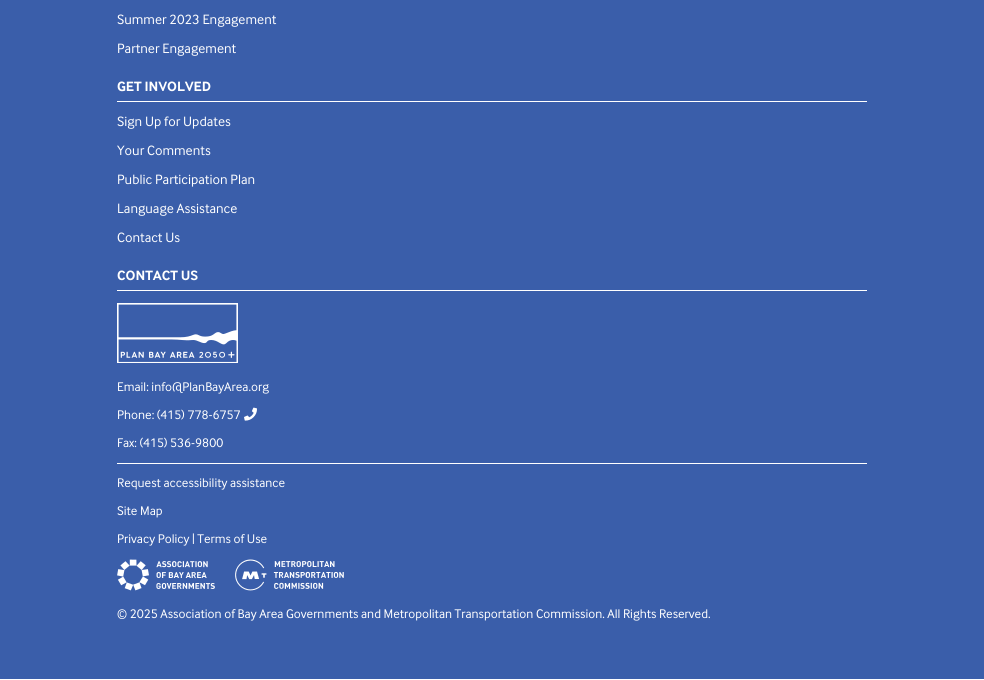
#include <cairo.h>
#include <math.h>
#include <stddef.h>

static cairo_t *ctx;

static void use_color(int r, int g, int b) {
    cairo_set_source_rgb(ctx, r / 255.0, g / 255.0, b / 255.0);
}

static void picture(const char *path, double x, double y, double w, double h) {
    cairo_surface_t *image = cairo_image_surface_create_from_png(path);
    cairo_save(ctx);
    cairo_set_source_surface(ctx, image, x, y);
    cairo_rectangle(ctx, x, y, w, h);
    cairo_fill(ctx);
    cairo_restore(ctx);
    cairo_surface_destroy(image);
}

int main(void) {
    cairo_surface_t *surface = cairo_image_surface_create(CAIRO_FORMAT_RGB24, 984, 680);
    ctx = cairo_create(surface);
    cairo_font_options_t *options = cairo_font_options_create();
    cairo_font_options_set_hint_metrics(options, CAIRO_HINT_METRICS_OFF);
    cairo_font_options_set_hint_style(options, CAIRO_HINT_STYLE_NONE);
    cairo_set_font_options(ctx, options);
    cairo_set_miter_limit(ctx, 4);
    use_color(255, 255, 255);
    cairo_paint(ctx);
    use_color(58, 94, 170);
    cairo_rectangle(ctx, 0, 0, 984, 679);
    cairo_fill(ctx);
    cairo_select_font_face(ctx, "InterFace", CAIRO_FONT_SLANT_NORMAL, CAIRO_FONT_WEIGHT_NORMAL);
    cairo_set_font_size(ctx, 14);
    use_color(255, 255, 255);
    cairo_move_to(ctx, 117, 24);
    cairo_show_text(ctx, "Summer 2023 Engagement");
    cairo_move_to(ctx, 117, 53);
    cairo_show_text(ctx, "Partner Engagement");
    cairo_rectangle(ctx, 117, 101, 750, 1);
    cairo_fill(ctx);
    cairo_select_font_face(ctx, "InterFace", CAIRO_FONT_SLANT_NORMAL, CAIRO_FONT_WEIGHT_BOLD);
    cairo_move_to(ctx, 117, 91);
    cairo_show_text(ctx, "GET INVOLVED");
    cairo_select_font_face(ctx, "InterFace", CAIRO_FONT_SLANT_NORMAL, CAIRO_FONT_WEIGHT_NORMAL);
    cairo_move_to(ctx, 117, 126);
    cairo_show_text(ctx, "Sign Up for Updates");
    cairo_move_to(ctx, 117, 155);
    cairo_show_text(ctx, "Your Comments");
    cairo_move_to(ctx, 117, 184);
    cairo_show_text(ctx, "Public Participation Plan");
    cairo_move_to(ctx, 117, 213);
    cairo_show_text(ctx, "Language Assistance");
    cairo_move_to(ctx, 117, 242);
    cairo_show_text(ctx, "Contact Us");
    cairo_rectangle(ctx, 117, 290, 750, 1);
    cairo_fill(ctx);
    cairo_select_font_face(ctx, "InterFace", CAIRO_FONT_SLANT_NORMAL, CAIRO_FONT_WEIGHT_BOLD);
    cairo_move_to(ctx, 117, 280);
    cairo_show_text(ctx, "CONTACT US");
    picture("img1.png", 117, 303, 121, 60);
    cairo_rectangle(ctx, 117, 463, 750, 1);
    cairo_fill(ctx);
    cairo_select_font_face(ctx, "InterFace", CAIRO_FONT_SLANT_NORMAL, CAIRO_FONT_WEIGHT_NORMAL);
    cairo_set_font_size(ctx, 13);
    cairo_move_to(ctx, 117, 391);
    cairo_show_text(ctx, "Email: info@PlanBayArea.org");
    cairo_move_to(ctx, 117, 419);
    cairo_show_text(ctx, "Phone: (415) 778-6757");
    picture("img2.png", 244, 407, 13, 14);
    cairo_move_to(ctx, 117, 447);
    cairo_show_text(ctx, "Fax: (415) 536-9800");
    cairo_move_to(ctx, 117, 487);
    cairo_show_text(ctx, "Request accessibility assistance");
    cairo_move_to(ctx, 117, 515);
    cairo_show_text(ctx, "Site Map");
    cairo_move_to(ctx, 117, 543);
    cairo_show_text(ctx, "Privacy Policy | Terms of Use");
    picture("img3.png", 117, 559, 98, 32);
    picture("img4.png", 235, 559, 109, 32);
    cairo_move_to(ctx, 117, 618);
    cairo_show_text(ctx, "© 2025 Association of Bay Area Governments and Metropolitan Transportation Commission. All Rights Reserved.");
    cairo_surface_write_to_png(surface, "result.png");
    cairo_font_options_destroy(options);
    cairo_destroy(ctx);
    cairo_surface_destroy(surface);
    return 0;
}
